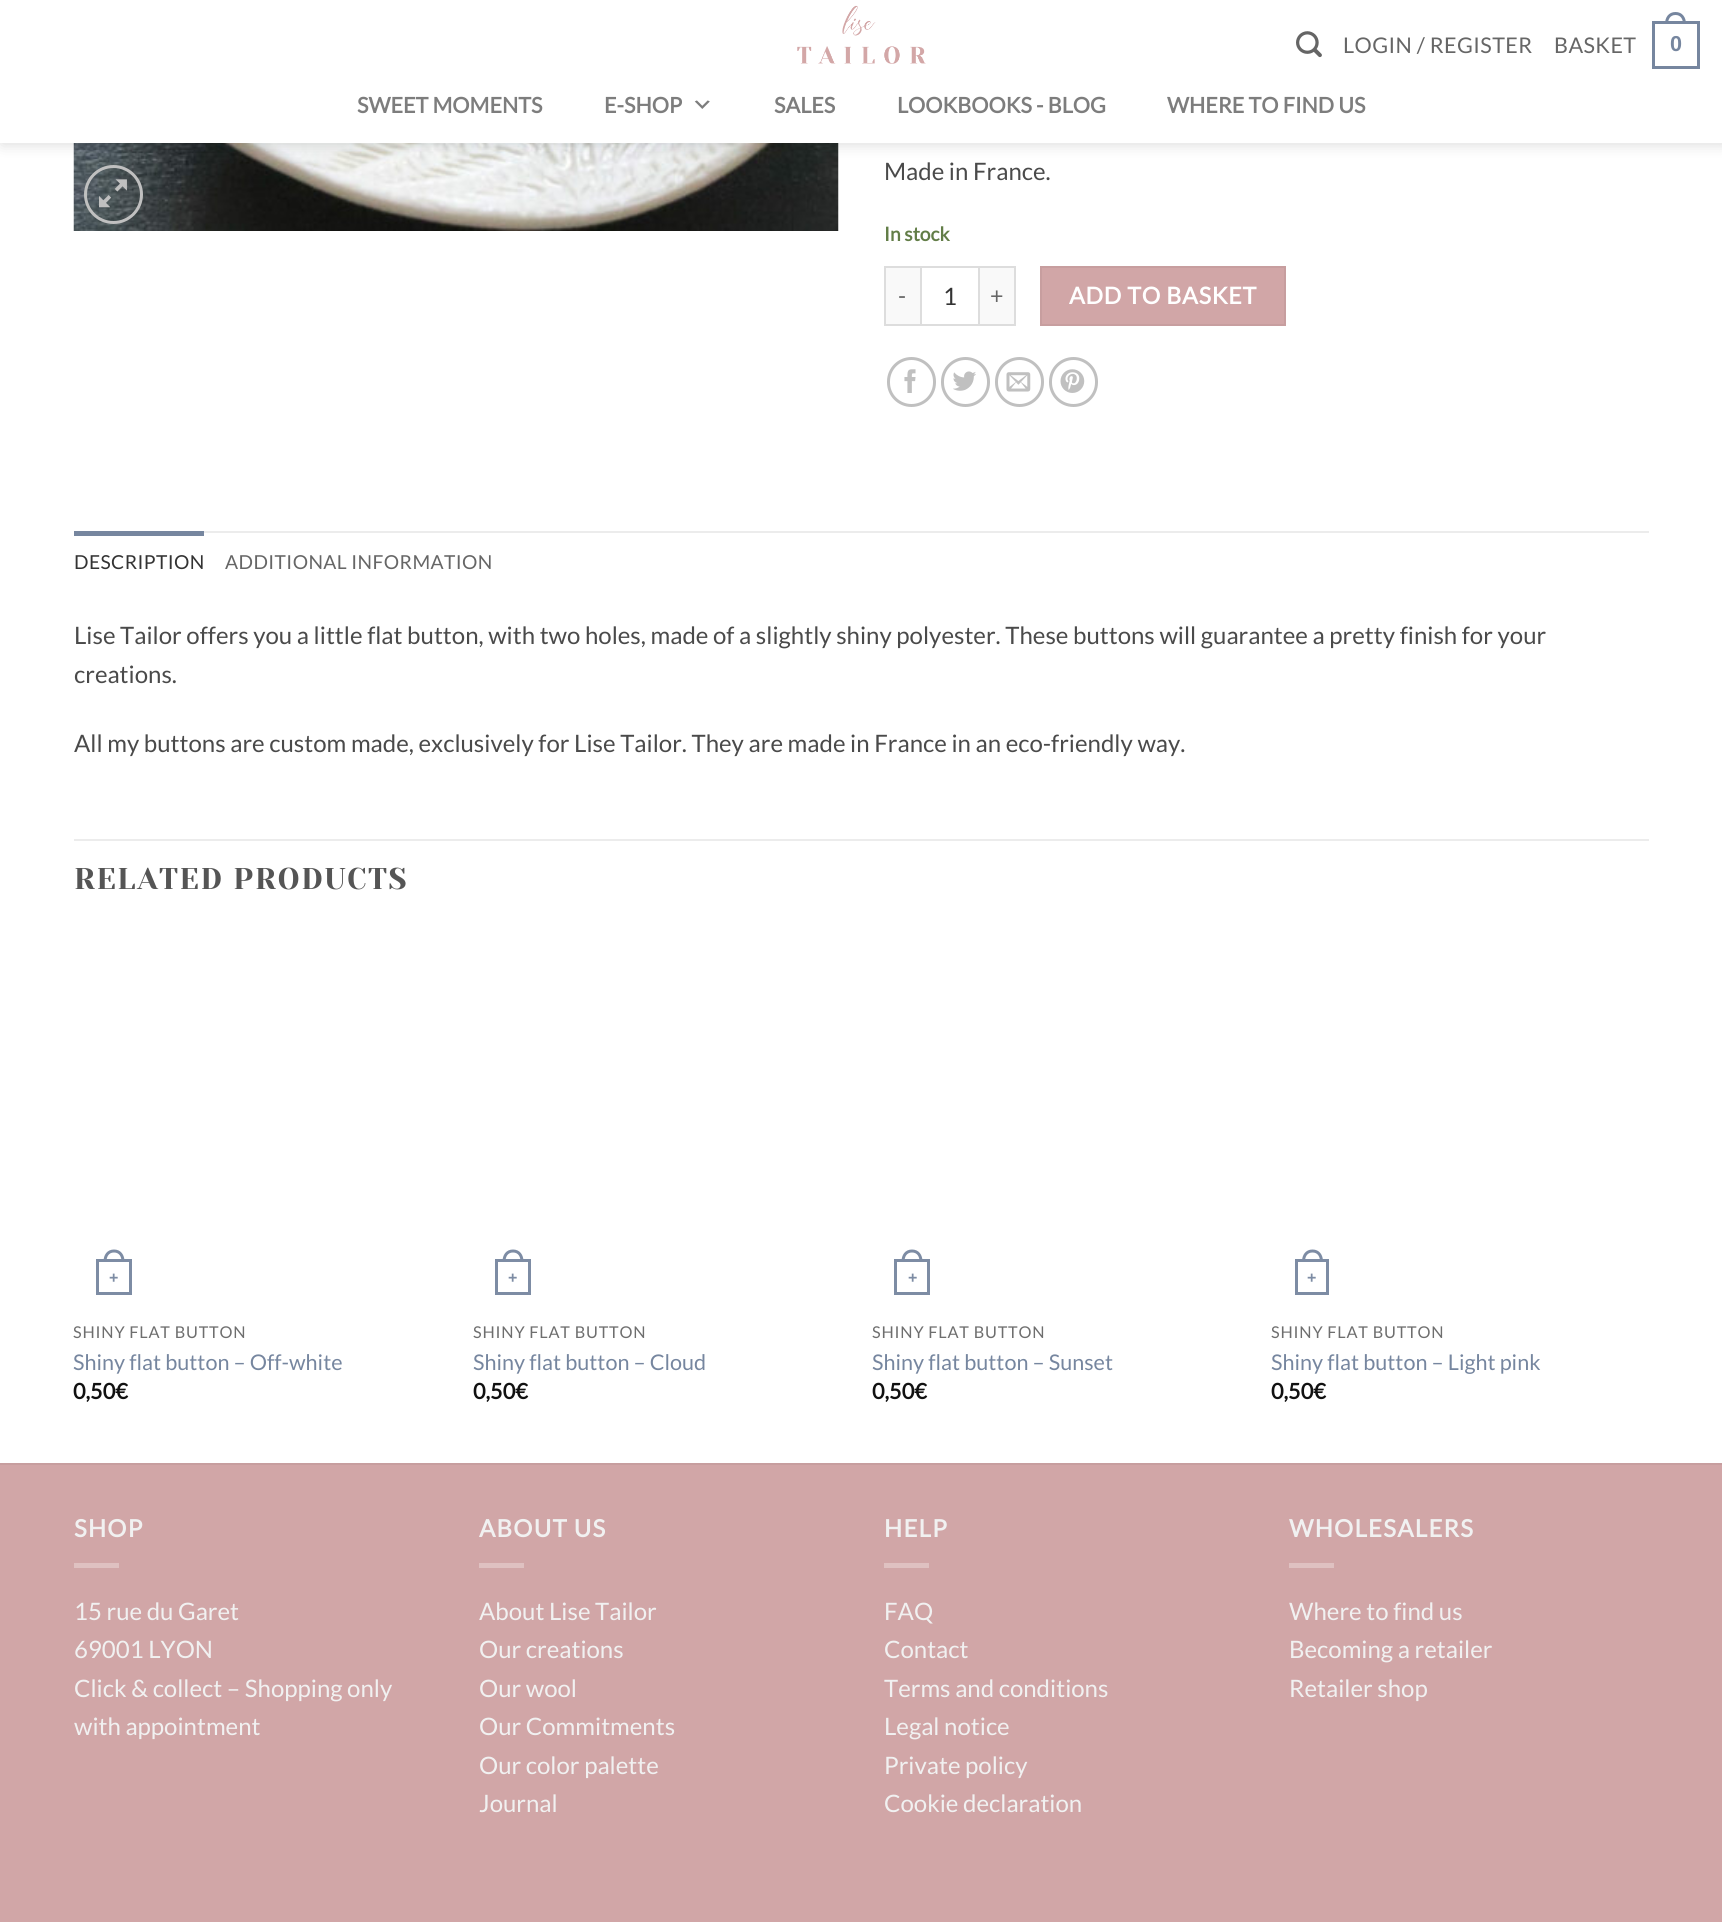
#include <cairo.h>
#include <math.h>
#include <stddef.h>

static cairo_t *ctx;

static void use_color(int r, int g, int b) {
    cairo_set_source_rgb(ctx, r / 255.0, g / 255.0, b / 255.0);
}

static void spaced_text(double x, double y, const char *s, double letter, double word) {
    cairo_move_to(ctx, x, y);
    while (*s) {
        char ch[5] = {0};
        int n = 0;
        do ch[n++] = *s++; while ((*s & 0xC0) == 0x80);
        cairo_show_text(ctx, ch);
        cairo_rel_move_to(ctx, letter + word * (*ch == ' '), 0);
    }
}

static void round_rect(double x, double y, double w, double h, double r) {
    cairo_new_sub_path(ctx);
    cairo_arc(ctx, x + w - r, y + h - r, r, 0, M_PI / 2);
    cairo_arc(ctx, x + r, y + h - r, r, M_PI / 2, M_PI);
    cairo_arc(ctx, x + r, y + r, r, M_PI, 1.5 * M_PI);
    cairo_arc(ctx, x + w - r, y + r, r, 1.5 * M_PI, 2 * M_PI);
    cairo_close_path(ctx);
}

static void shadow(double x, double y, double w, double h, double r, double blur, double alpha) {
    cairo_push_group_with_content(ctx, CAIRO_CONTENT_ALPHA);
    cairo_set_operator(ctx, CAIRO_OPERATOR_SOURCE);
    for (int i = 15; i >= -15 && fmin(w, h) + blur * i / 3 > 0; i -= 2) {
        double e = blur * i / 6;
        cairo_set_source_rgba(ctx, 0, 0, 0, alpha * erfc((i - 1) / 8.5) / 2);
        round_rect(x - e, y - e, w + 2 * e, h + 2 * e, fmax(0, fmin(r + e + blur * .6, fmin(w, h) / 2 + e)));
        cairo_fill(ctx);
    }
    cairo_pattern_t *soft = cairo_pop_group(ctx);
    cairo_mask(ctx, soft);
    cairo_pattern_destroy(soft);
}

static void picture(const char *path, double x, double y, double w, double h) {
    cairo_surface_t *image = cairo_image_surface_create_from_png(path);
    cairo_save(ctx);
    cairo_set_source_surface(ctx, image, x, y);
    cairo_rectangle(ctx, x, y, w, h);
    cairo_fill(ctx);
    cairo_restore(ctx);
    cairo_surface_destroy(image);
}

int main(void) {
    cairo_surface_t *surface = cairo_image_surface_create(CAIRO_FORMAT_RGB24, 1722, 1922);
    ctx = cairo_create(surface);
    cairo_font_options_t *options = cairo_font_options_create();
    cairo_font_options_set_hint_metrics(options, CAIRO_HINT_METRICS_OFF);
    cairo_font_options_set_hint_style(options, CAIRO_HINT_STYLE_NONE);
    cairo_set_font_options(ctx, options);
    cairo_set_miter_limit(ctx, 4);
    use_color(255, 255, 255);
    cairo_paint(ctx);
    picture("img4.png", 73, 143, 766, 88);
    cairo_arc(ctx, 113.5, 194.5, 28, 0, 2 * M_PI);
    use_color(192, 192, 192);
    cairo_set_line_width(ctx, 3);
    cairo_stroke(ctx);
    use_color(0, 0, 0);
    shadow(2, 2, 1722, 142, 0, 7.5, 0.15);
    use_color(255, 255, 255);
    cairo_rectangle(ctx, 0, 0, 1722, 143);
    cairo_fill(ctx);
    picture("img1.png", 797, 5, 129, 59);
    picture("img2.png", 1296, 31, 26, 27);
    cairo_select_font_face(ctx, "Lato", CAIRO_FONT_SLANT_NORMAL, CAIRO_FONT_WEIGHT_NORMAL);
    cairo_set_font_size(ctx, 21.6);
    use_color(102, 102, 102);
    spaced_text(1343, 53, "LOGIN / REGISTER", 0.4, 0);
    spaced_text(1554, 53, "BASKET", 0.4, 0);
    cairo_rectangle(ctx, 1653.5, 22.5, 45, 45);
    use_color(118, 134, 159);
    cairo_stroke(ctx);
    cairo_set_fill_rule(ctx, CAIRO_FILL_RULE_EVEN_ODD);
    cairo_new_path(ctx);
    cairo_move_to(ctx, 1675.5, 12);
    cairo_curve_to(ctx, 1682.5, 12, 1686, 17.5, 1686, 24);
    cairo_line_to(ctx, 1665, 24);
    cairo_curve_to(ctx, 1665, 17.5, 1668.5, 12, 1675.5, 12);
    cairo_close_path(ctx);
    cairo_move_to(ctx, 1675.5, 15);
    cairo_curve_to(ctx, 1681, 15, 1683, 19.5, 1683, 24);
    cairo_line_to(ctx, 1668, 24);
    cairo_curve_to(ctx, 1668, 19.5, 1670, 15, 1675.5, 15);
    cairo_close_path(ctx);
    cairo_fill(ctx);
    cairo_select_font_face(ctx, "Liberation Sans", CAIRO_FONT_SLANT_NORMAL, CAIRO_FONT_WEIGHT_BOLD);
    spaced_text(1670, 51, "0", 0.4, 0);
    cairo_select_font_face(ctx, "Lato", CAIRO_FONT_SLANT_NORMAL, CAIRO_FONT_WEIGHT_BOLD);
    use_color(125, 125, 125);
    cairo_move_to(ctx, 357, 113);
    cairo_show_text(ctx, "SWEET MOMENTS");
    cairo_move_to(ctx, 604, 113);
    cairo_show_text(ctx, "E-SHOP");
    picture("img3.png", 694, 100, 16, 9);
    cairo_move_to(ctx, 774, 113);
    cairo_show_text(ctx, "SALES");
    cairo_move_to(ctx, 897, 113);
    cairo_show_text(ctx, "LOOKBOOKS - BLOG");
    cairo_move_to(ctx, 1167, 113);
    cairo_show_text(ctx, "WHERE TO FIND US");
    picture("img5.png", 99, 179, 28, 29);
    cairo_select_font_face(ctx, "Lato", CAIRO_FONT_SLANT_NORMAL, CAIRO_FONT_WEIGHT_NORMAL);
    cairo_set_font_size(ctx, 24);
    use_color(74, 74, 74);
    cairo_move_to(ctx, 884, 180);
    cairo_show_text(ctx, "Made in France.");
    cairo_select_font_face(ctx, "Lato", CAIRO_FONT_SLANT_NORMAL, CAIRO_FONT_WEIGHT_BOLD);
    cairo_set_font_size(ctx, 19.25);
    use_color(98, 125, 71);
    cairo_move_to(ctx, 884, 241);
    cairo_show_text(ctx, "In stock");
    use_color(249, 249, 249);
    cairo_rectangle(ctx, 886, 268, 34, 56);
    cairo_fill(ctx);
    use_color(221, 221, 221);
    cairo_rectangle(ctx, 884, 266, 36, 2);
    cairo_fill(ctx);
    cairo_rectangle(ctx, 884, 324, 36, 2);
    cairo_fill(ctx);
    cairo_rectangle(ctx, 884, 266, 2, 60);
    cairo_fill(ctx);
    cairo_select_font_face(ctx, "Lato", CAIRO_FONT_SLANT_NORMAL, CAIRO_FONT_WEIGHT_NORMAL);
    cairo_set_font_size(ctx, 23.25);
    use_color(102, 102, 102);
    spaced_text(898, 304, "-", 0.75, 0);
    cairo_rectangle(ctx, 921, 267, 58, 58);
    use_color(221, 221, 221);
    cairo_set_line_width(ctx, 2);
    cairo_stroke(ctx);
    cairo_set_font_size(ctx, 24);
    use_color(51, 51, 51);
    cairo_move_to(ctx, 943, 305);
    cairo_show_text(ctx, "1");
    use_color(249, 249, 249);
    cairo_rectangle(ctx, 980, 268, 34, 56);
    cairo_fill(ctx);
    use_color(221, 221, 221);
    cairo_rectangle(ctx, 980, 266, 36, 2);
    cairo_fill(ctx);
    cairo_rectangle(ctx, 1014, 266, 2, 60);
    cairo_fill(ctx);
    cairo_rectangle(ctx, 980, 324, 36, 2);
    cairo_fill(ctx);
    cairo_set_font_size(ctx, 23.25);
    use_color(102, 102, 102);
    spaced_text(990, 304, "+", 0.75, 0);
    use_color(209, 166, 167);
    cairo_rectangle(ctx, 1041, 267, 244, 58);
    cairo_fill_preserve(ctx);
    use_color(199, 158, 159);
    cairo_stroke(ctx);
    cairo_select_font_face(ctx, "Lato", CAIRO_FONT_SLANT_NORMAL, CAIRO_FONT_WEIGHT_BOLD);
    use_color(255, 255, 255);
    spaced_text(1069, 304, "ADD TO BASKET", 0.75, 0);
    round_rect(888.5, 358.5, 46, 47, 23);
    use_color(192, 192, 192);
    cairo_set_line_width(ctx, 3);
    cairo_stroke(ctx);
    picture("img6.png", 904, 369, 12, 24);
    round_rect(942.5, 358.5, 46, 47, 23);
    cairo_stroke(ctx);
    picture("img7.png", 953, 371, 23, 20);
    round_rect(996.5, 358.5, 46, 47, 23);
    cairo_stroke(ctx);
    picture("img8.png", 1006, 372, 25, 20);
    round_rect(1050.5, 358.5, 46, 47, 23);
    cairo_stroke(ctx);
    picture("img9.png", 1060, 369, 25, 24);
    use_color(236, 236, 236);
    cairo_rectangle(ctx, 204, 531, 1445, 2);
    cairo_fill(ctx);
    use_color(118, 134, 159);
    cairo_rectangle(ctx, 74, 531, 130, 5);
    cairo_fill(ctx);
    cairo_select_font_face(ctx, "Lato", CAIRO_FONT_SLANT_NORMAL, CAIRO_FONT_WEIGHT_NORMAL);
    cairo_set_font_size(ctx, 19.25);
    use_color(51, 51, 51);
    spaced_text(74, 569, "DESCRIPTION", 0.4, 0);
    use_color(102, 102, 102);
    spaced_text(225, 569, "ADDITIONAL INFORMATION", 0.4, 0);
    cairo_set_font_size(ctx, 24);
    use_color(74, 74, 74);
    cairo_move_to(ctx, 74, 644);
    cairo_show_text(ctx, "Lise Tailor offers you a little flat button, with two holes, made of a slightly shiny polyester. These buttons will guarantee a pretty finish for your");
    cairo_move_to(ctx, 74, 683);
    cairo_show_text(ctx, "creations.");
    cairo_move_to(ctx, 74, 752);
    cairo_show_text(ctx, "All my buttons are custom made, exclusively for Lise Tailor. They are made in France in an eco-friendly way.");
    use_color(236, 236, 236);
    cairo_rectangle(ctx, 74, 839, 1575, 2);
    cairo_fill(ctx);
    cairo_select_font_face(ctx, "Yeseva One", CAIRO_FONT_SLANT_NORMAL, CAIRO_FONT_WEIGHT_NORMAL);
    cairo_set_font_size(ctx, 30);
    use_color(85, 85, 85);
    spaced_text(74, 889, "RELATED PRODUCTS", 1.5, 0);
    cairo_rectangle(ctx, 97.5, 1260.5, 33, 33);
    use_color(125, 140, 164);
    cairo_stroke(ctx);
    cairo_new_path(ctx);
    cairo_move_to(ctx, 114, 1249.5);
    cairo_curve_to(ctx, 121, 1249.5, 124.5, 1255, 124.5, 1261.5);
    cairo_line_to(ctx, 103.5, 1261.5);
    cairo_curve_to(ctx, 103.5, 1255, 107, 1249.5, 114, 1249.5);
    cairo_close_path(ctx);
    cairo_move_to(ctx, 114, 1252.5);
    cairo_curve_to(ctx, 119.5, 1252.5, 121.5, 1257, 121.5, 1261.5);
    cairo_line_to(ctx, 106.5, 1261.5);
    cairo_curve_to(ctx, 106.5, 1257, 108.5, 1252.5, 114, 1252.5);
    cairo_close_path(ctx);
    cairo_fill(ctx);
    cairo_select_font_face(ctx, "Liberation Sans", CAIRO_FONT_SLANT_NORMAL, CAIRO_FONT_WEIGHT_BOLD);
    cairo_set_font_size(ctx, 16);
    cairo_move_to(ctx, 109, 1283);
    cairo_show_text(ctx, "+");
    cairo_select_font_face(ctx, "Lato", CAIRO_FONT_SLANT_NORMAL, CAIRO_FONT_WEIGHT_NORMAL);
    cairo_set_font_size(ctx, 16.25);
    use_color(110, 110, 110);
    spaced_text(73, 1338, "SHINY FLAT BUTTON", 0.8, 0);
    cairo_set_font_size(ctx, 21.6);
    use_color(118, 134, 159);
    cairo_move_to(ctx, 73, 1370);
    cairo_show_text(ctx, "Shiny flat button – Off-white");
    cairo_select_font_face(ctx, "Lato", CAIRO_FONT_SLANT_NORMAL, CAIRO_FONT_WEIGHT_BOLD);
    use_color(17, 17, 17);
    cairo_move_to(ctx, 73, 1399);
    cairo_show_text(ctx, "0,50€");
    cairo_rectangle(ctx, 496.5, 1260.5, 33, 33);
    use_color(125, 140, 164);
    cairo_stroke(ctx);
    cairo_new_path(ctx);
    cairo_move_to(ctx, 513, 1249.5);
    cairo_curve_to(ctx, 520, 1249.5, 523.5, 1255, 523.5, 1261.5);
    cairo_line_to(ctx, 502.5, 1261.5);
    cairo_curve_to(ctx, 502.5, 1255, 506, 1249.5, 513, 1249.5);
    cairo_close_path(ctx);
    cairo_move_to(ctx, 513, 1252.5);
    cairo_curve_to(ctx, 518.5, 1252.5, 520.5, 1257, 520.5, 1261.5);
    cairo_line_to(ctx, 505.5, 1261.5);
    cairo_curve_to(ctx, 505.5, 1257, 507.5, 1252.5, 513, 1252.5);
    cairo_close_path(ctx);
    cairo_fill(ctx);
    cairo_select_font_face(ctx, "Liberation Sans", CAIRO_FONT_SLANT_NORMAL, CAIRO_FONT_WEIGHT_BOLD);
    cairo_set_font_size(ctx, 16);
    cairo_move_to(ctx, 508, 1283);
    cairo_show_text(ctx, "+");
    cairo_select_font_face(ctx, "Lato", CAIRO_FONT_SLANT_NORMAL, CAIRO_FONT_WEIGHT_NORMAL);
    cairo_set_font_size(ctx, 16.25);
    use_color(110, 110, 110);
    spaced_text(473, 1338, "SHINY FLAT BUTTON", 0.8, 0);
    cairo_set_font_size(ctx, 21.6);
    use_color(118, 134, 159);
    cairo_move_to(ctx, 473, 1370);
    cairo_show_text(ctx, "Shiny flat button – Cloud");
    cairo_select_font_face(ctx, "Lato", CAIRO_FONT_SLANT_NORMAL, CAIRO_FONT_WEIGHT_BOLD);
    use_color(17, 17, 17);
    cairo_move_to(ctx, 473, 1399);
    cairo_show_text(ctx, "0,50€");
    cairo_rectangle(ctx, 895.5, 1260.5, 33, 33);
    use_color(125, 140, 164);
    cairo_stroke(ctx);
    cairo_new_path(ctx);
    cairo_move_to(ctx, 912, 1249.5);
    cairo_curve_to(ctx, 919, 1249.5, 922.5, 1255, 922.5, 1261.5);
    cairo_line_to(ctx, 901.5, 1261.5);
    cairo_curve_to(ctx, 901.5, 1255, 905, 1249.5, 912, 1249.5);
    cairo_close_path(ctx);
    cairo_move_to(ctx, 912, 1252.5);
    cairo_curve_to(ctx, 917.5, 1252.5, 919.5, 1257, 919.5, 1261.5);
    cairo_line_to(ctx, 904.5, 1261.5);
    cairo_curve_to(ctx, 904.5, 1257, 906.5, 1252.5, 912, 1252.5);
    cairo_close_path(ctx);
    cairo_fill(ctx);
    cairo_select_font_face(ctx, "Liberation Sans", CAIRO_FONT_SLANT_NORMAL, CAIRO_FONT_WEIGHT_BOLD);
    cairo_set_font_size(ctx, 16);
    cairo_move_to(ctx, 908, 1283);
    cairo_show_text(ctx, "+");
    cairo_select_font_face(ctx, "Lato", CAIRO_FONT_SLANT_NORMAL, CAIRO_FONT_WEIGHT_NORMAL);
    cairo_set_font_size(ctx, 16.25);
    use_color(110, 110, 110);
    spaced_text(872, 1338, "SHINY FLAT BUTTON", 0.8, 0);
    cairo_set_font_size(ctx, 21.6);
    use_color(118, 134, 159);
    cairo_move_to(ctx, 872, 1370);
    cairo_show_text(ctx, "Shiny flat button – Sunset");
    cairo_select_font_face(ctx, "Lato", CAIRO_FONT_SLANT_NORMAL, CAIRO_FONT_WEIGHT_BOLD);
    use_color(17, 17, 17);
    cairo_move_to(ctx, 872, 1399);
    cairo_show_text(ctx, "0,50€");
    cairo_rectangle(ctx, 1296.5, 1260.5, 31, 33);
    use_color(125, 140, 164);
    cairo_stroke(ctx);
    cairo_new_path(ctx);
    cairo_move_to(ctx, 1312.5, 1249.5);
    cairo_curve_to(ctx, 1319.5, 1249.5, 1323, 1255, 1323, 1261.5);
    cairo_line_to(ctx, 1302, 1261.5);
    cairo_curve_to(ctx, 1302, 1255, 1305.5, 1249.5, 1312.5, 1249.5);
    cairo_close_path(ctx);
    cairo_move_to(ctx, 1312.5, 1252.5);
    cairo_curve_to(ctx, 1318, 1252.5, 1320, 1257, 1320, 1261.5);
    cairo_line_to(ctx, 1305, 1261.5);
    cairo_curve_to(ctx, 1305, 1257, 1307, 1252.5, 1312.5, 1252.5);
    cairo_close_path(ctx);
    cairo_fill(ctx);
    cairo_select_font_face(ctx, "Liberation Sans", CAIRO_FONT_SLANT_NORMAL, CAIRO_FONT_WEIGHT_BOLD);
    cairo_set_font_size(ctx, 16);
    cairo_move_to(ctx, 1307, 1283);
    cairo_show_text(ctx, "+");
    cairo_select_font_face(ctx, "Lato", CAIRO_FONT_SLANT_NORMAL, CAIRO_FONT_WEIGHT_NORMAL);
    cairo_set_font_size(ctx, 16.25);
    use_color(110, 110, 110);
    spaced_text(1271, 1338, "SHINY FLAT BUTTON", 0.8, 0);
    cairo_set_font_size(ctx, 21.6);
    use_color(118, 134, 159);
    cairo_move_to(ctx, 1271, 1370);
    cairo_show_text(ctx, "Shiny flat button – Light pink");
    cairo_select_font_face(ctx, "Lato", CAIRO_FONT_SLANT_NORMAL, CAIRO_FONT_WEIGHT_BOLD);
    use_color(17, 17, 17);
    cairo_move_to(ctx, 1271, 1399);
    cairo_show_text(ctx, "0,50€");
    use_color(209, 166, 167);
    cairo_rectangle(ctx, 0, 1465, 1722, 457);
    cairo_fill(ctx);
    use_color(199, 158, 159);
    cairo_rectangle(ctx, 0, 1463, 1722, 2);
    cairo_fill(ctx);
    cairo_set_font_size(ctx, 24);
    use_color(241, 241, 241);
    spaced_text(74, 1537, "SHOP", 1.25, 0);
    use_color(223, 193, 193);
    cairo_rectangle(ctx, 74, 1563, 45, 5);
    cairo_fill(ctx);
    cairo_select_font_face(ctx, "Lato", CAIRO_FONT_SLANT_NORMAL, CAIRO_FONT_WEIGHT_NORMAL);
    use_color(241, 241, 241);
    cairo_move_to(ctx, 74, 1620);
    cairo_show_text(ctx, "15 rue du Garet");
    cairo_move_to(ctx, 74, 1658);
    cairo_show_text(ctx, "69001 LYON");
    cairo_move_to(ctx, 74, 1697);
    cairo_show_text(ctx, "Click & collect – Shopping only");
    cairo_move_to(ctx, 74, 1735);
    cairo_show_text(ctx, "with appointment");
    cairo_select_font_face(ctx, "Lato", CAIRO_FONT_SLANT_NORMAL, CAIRO_FONT_WEIGHT_BOLD);
    spaced_text(479, 1537, "ABOUT US", 1.25, 0);
    use_color(223, 193, 193);
    cairo_rectangle(ctx, 479, 1563, 45, 5);
    cairo_fill(ctx);
    cairo_select_font_face(ctx, "Lato", CAIRO_FONT_SLANT_NORMAL, CAIRO_FONT_WEIGHT_NORMAL);
    use_color(241, 241, 241);
    cairo_move_to(ctx, 479, 1620);
    cairo_show_text(ctx, "About Lise Tailor");
    cairo_move_to(ctx, 479, 1658);
    cairo_show_text(ctx, "Our creations");
    cairo_move_to(ctx, 479, 1697);
    cairo_show_text(ctx, "Our wool");
    cairo_move_to(ctx, 479, 1735);
    cairo_show_text(ctx, "Our Commitments");
    cairo_move_to(ctx, 479, 1774);
    cairo_show_text(ctx, "Our color palette");
    cairo_move_to(ctx, 479, 1812);
    cairo_show_text(ctx, "Journal");
    cairo_select_font_face(ctx, "Lato", CAIRO_FONT_SLANT_NORMAL, CAIRO_FONT_WEIGHT_BOLD);
    spaced_text(884, 1537, "HELP", 1.25, 0);
    use_color(223, 193, 193);
    cairo_rectangle(ctx, 884, 1563, 45, 5);
    cairo_fill(ctx);
    cairo_select_font_face(ctx, "Lato", CAIRO_FONT_SLANT_NORMAL, CAIRO_FONT_WEIGHT_NORMAL);
    use_color(241, 241, 241);
    cairo_move_to(ctx, 884, 1620);
    cairo_show_text(ctx, "FAQ");
    cairo_move_to(ctx, 884, 1658);
    cairo_show_text(ctx, "Contact");
    cairo_move_to(ctx, 884, 1697);
    cairo_show_text(ctx, "Terms and conditions");
    cairo_move_to(ctx, 884, 1735);
    cairo_show_text(ctx, "Legal notice");
    cairo_move_to(ctx, 884, 1774);
    cairo_show_text(ctx, "Private policy");
    cairo_move_to(ctx, 884, 1812);
    cairo_show_text(ctx, "Cookie declaration");
    cairo_select_font_face(ctx, "Lato", CAIRO_FONT_SLANT_NORMAL, CAIRO_FONT_WEIGHT_BOLD);
    spaced_text(1289, 1537, "WHOLESALERS", 1.25, 0);
    use_color(223, 193, 193);
    cairo_rectangle(ctx, 1289, 1563, 45, 5);
    cairo_fill(ctx);
    cairo_select_font_face(ctx, "Lato", CAIRO_FONT_SLANT_NORMAL, CAIRO_FONT_WEIGHT_NORMAL);
    use_color(241, 241, 241);
    cairo_move_to(ctx, 1289, 1620);
    cairo_show_text(ctx, "Where to find us");
    cairo_move_to(ctx, 1289, 1658);
    cairo_show_text(ctx, "Becoming a retailer");
    cairo_move_to(ctx, 1289, 1697);
    cairo_show_text(ctx, "Retailer shop");
    cairo_surface_write_to_png(surface, "result.png");
    cairo_font_options_destroy(options);
    cairo_destroy(ctx);
    cairo_surface_destroy(surface);
    return 0;
}
